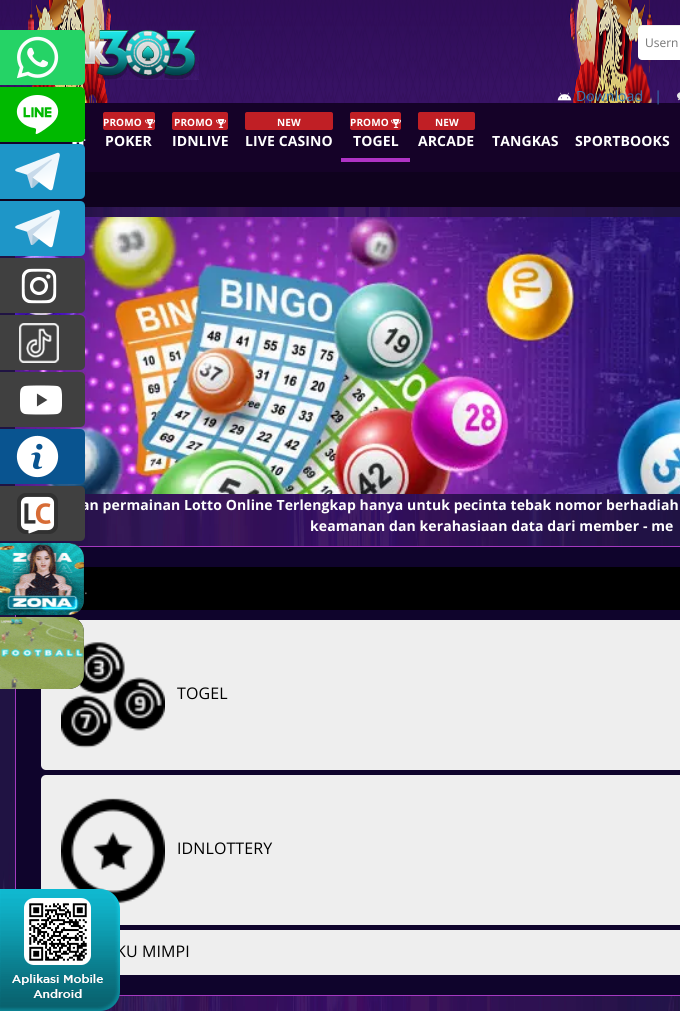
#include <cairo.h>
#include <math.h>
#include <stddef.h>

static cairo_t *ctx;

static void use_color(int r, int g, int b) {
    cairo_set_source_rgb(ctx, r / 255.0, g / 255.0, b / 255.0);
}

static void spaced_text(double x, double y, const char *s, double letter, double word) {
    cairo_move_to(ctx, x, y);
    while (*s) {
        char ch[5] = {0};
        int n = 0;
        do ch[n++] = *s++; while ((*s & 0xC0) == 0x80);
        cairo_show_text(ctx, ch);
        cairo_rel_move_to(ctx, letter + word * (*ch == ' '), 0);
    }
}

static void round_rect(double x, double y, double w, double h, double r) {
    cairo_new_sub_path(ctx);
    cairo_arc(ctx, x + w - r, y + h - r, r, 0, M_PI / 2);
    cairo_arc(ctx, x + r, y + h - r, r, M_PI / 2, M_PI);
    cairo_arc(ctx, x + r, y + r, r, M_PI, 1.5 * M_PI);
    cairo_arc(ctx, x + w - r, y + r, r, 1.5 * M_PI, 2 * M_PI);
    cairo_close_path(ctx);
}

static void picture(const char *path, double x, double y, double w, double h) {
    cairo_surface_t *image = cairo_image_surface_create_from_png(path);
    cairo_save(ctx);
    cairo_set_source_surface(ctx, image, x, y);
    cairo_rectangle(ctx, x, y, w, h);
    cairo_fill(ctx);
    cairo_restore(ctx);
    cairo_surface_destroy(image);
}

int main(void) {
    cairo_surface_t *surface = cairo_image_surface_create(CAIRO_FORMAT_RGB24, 680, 1011);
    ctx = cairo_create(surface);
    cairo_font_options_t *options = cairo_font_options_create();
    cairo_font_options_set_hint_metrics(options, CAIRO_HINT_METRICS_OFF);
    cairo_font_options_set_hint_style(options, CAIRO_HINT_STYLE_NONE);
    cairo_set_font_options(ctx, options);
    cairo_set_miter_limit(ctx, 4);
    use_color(15, 2, 30);
    cairo_paint(ctx);
    picture("img11.png", 0, 0, 680, 103);
    use_color(37, 211, 102);
    cairo_new_path(ctx);
    cairo_move_to(ctx, 0, 30);
    cairo_line_to(ctx, 80, 30);
    cairo_curve_to(ctx, 83, 30, 85, 32, 85, 35);
    cairo_line_to(ctx, 85, 80);
    cairo_curve_to(ctx, 85, 83, 83, 85, 80, 85);
    cairo_line_to(ctx, 0, 85);
    cairo_close_path(ctx);
    cairo_fill(ctx);
    picture("img1.png", 17, 36, 42, 43);
    use_color(21, 2, 40);
    cairo_rectangle(ctx, 0, 103, 680, 69);
    cairo_fill(ctx);
    picture("img15.png", 72, 138, 14, 8);
    use_color(0, 185, 0);
    cairo_new_path(ctx);
    cairo_move_to(ctx, 0, 87);
    cairo_line_to(ctx, 80, 87);
    cairo_curve_to(ctx, 83, 87, 85, 89, 85, 92);
    cairo_line_to(ctx, 85, 137);
    cairo_curve_to(ctx, 85, 140, 83, 142, 80, 142);
    cairo_line_to(ctx, 0, 142);
    cairo_close_path(ctx);
    cairo_fill(ctx);
    picture("img2.png", 16, 95, 43, 39);
    use_color(30, 150, 200);
    cairo_new_path(ctx);
    cairo_move_to(ctx, 0, 144);
    cairo_line_to(ctx, 80, 144);
    cairo_curve_to(ctx, 83, 144, 85, 146, 85, 149);
    cairo_line_to(ctx, 85, 194);
    cairo_curve_to(ctx, 85, 197, 83, 199, 80, 199);
    cairo_line_to(ctx, 0, 199);
    cairo_close_path(ctx);
    cairo_fill(ctx);
    picture("img3.png", 15, 152, 45, 39);
    picture("img17.png", 0, 207, 680, 804);
    picture("img18.png", 15, 217, 665, 277);
    cairo_new_path(ctx);
    cairo_move_to(ctx, 0, 201);
    cairo_line_to(ctx, 80, 201);
    cairo_curve_to(ctx, 83, 201, 85, 203, 85, 206);
    cairo_line_to(ctx, 85, 251);
    cairo_curve_to(ctx, 85, 254, 83, 256, 80, 256);
    cairo_line_to(ctx, 0, 256);
    cairo_close_path(ctx);
    cairo_fill(ctx);
    picture("img3.png", 15, 209, 45, 39);
    use_color(64, 64, 64);
    cairo_new_path(ctx);
    cairo_move_to(ctx, 0, 258);
    cairo_line_to(ctx, 80, 258);
    cairo_curve_to(ctx, 83, 258, 85, 260, 85, 263);
    cairo_line_to(ctx, 85, 308);
    cairo_curve_to(ctx, 85, 311, 83, 313, 80, 313);
    cairo_line_to(ctx, 0, 313);
    cairo_close_path(ctx);
    cairo_fill(ctx);
    picture("img4.png", 21, 268, 36, 36);
    cairo_new_path(ctx);
    cairo_move_to(ctx, 0, 315);
    cairo_line_to(ctx, 80, 315);
    cairo_curve_to(ctx, 83, 315, 85, 317, 85, 320);
    cairo_line_to(ctx, 85, 365);
    cairo_curve_to(ctx, 85, 368, 83, 370, 80, 370);
    cairo_line_to(ctx, 0, 370);
    cairo_close_path(ctx);
    cairo_fill(ctx);
    picture("img5.png", 19, 323, 40, 40);
    cairo_new_path(ctx);
    cairo_move_to(ctx, 0, 372);
    cairo_line_to(ctx, 80, 372);
    cairo_curve_to(ctx, 83, 372, 85, 374, 85, 377);
    cairo_line_to(ctx, 85, 422);
    cairo_curve_to(ctx, 85, 425, 83, 427, 80, 427);
    cairo_line_to(ctx, 0, 427);
    cairo_close_path(ctx);
    cairo_fill(ctx);
    picture("img6.png", 20, 385, 42, 30);
    use_color(9, 84, 144);
    cairo_new_path(ctx);
    cairo_move_to(ctx, 0, 429);
    cairo_line_to(ctx, 80, 429);
    cairo_curve_to(ctx, 83, 429, 85, 431, 85, 434);
    cairo_line_to(ctx, 85, 479);
    cairo_curve_to(ctx, 85, 482, 83, 484, 80, 484);
    cairo_line_to(ctx, 0, 484);
    cairo_close_path(ctx);
    cairo_fill(ctx);
    picture("img7.png", 16, 435, 43, 43);
    cairo_select_font_face(ctx, "Open Sans", CAIRO_FONT_SLANT_NORMAL, CAIRO_FONT_WEIGHT_BOLD);
    cairo_set_font_size(ctx, 14);
    use_color(255, 255, 255);
    spaced_text(81, 510, "an permainan Lotto Online Terlengkap hanya untuk pecinta tebak nomor berhadiah", 0.1, 0);
    use_color(64, 64, 64);
    cairo_new_path(ctx);
    cairo_move_to(ctx, 0, 486);
    cairo_line_to(ctx, 80, 486);
    cairo_curve_to(ctx, 83, 486, 85, 488, 85, 491);
    cairo_line_to(ctx, 85, 536);
    cairo_curve_to(ctx, 85, 539, 83, 541, 80, 541);
    cairo_line_to(ctx, 0, 541);
    cairo_close_path(ctx);
    cairo_fill(ctx);
    picture("img8.png", 17, 493, 41, 41);
    use_color(15, 4, 44);
    cairo_rectangle(ctx, 15.5, 546.5, 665, 449);
    cairo_fill_preserve(ctx);
    use_color(164, 58, 192);
    cairo_set_line_width(ctx, 1);
    cairo_stroke(ctx);
    use_color(0, 0, 0);
    cairo_rectangle(ctx, 80, 567, 600, 43);
    cairo_fill(ctx);
    use_color(64, 64, 64);
    cairo_new_path(ctx);
    cairo_move_to(ctx, 0, 543);
    cairo_line_to(ctx, 69, 543);
    cairo_curve_to(ctx, 77.5, 543, 84, 549.5, 84, 558);
    cairo_line_to(ctx, 84, 600);
    cairo_curve_to(ctx, 84, 608.5, 77.5, 615, 69, 615);
    cairo_line_to(ctx, 0, 615);
    cairo_close_path(ctx);
    cairo_fill(ctx);
    picture("img9.png", 0, 543, 84, 72);
    use_color(238, 238, 238);
    round_rect(41, 620, 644, 150, 5);
    cairo_fill(ctx);
    picture("img19.png", 61, 642, 104, 106);
    use_color(64, 64, 64);
    cairo_new_path(ctx);
    cairo_move_to(ctx, 0, 617);
    cairo_line_to(ctx, 69, 617);
    cairo_curve_to(ctx, 77.5, 617, 84, 623.5, 84, 632);
    cairo_line_to(ctx, 84, 674);
    cairo_curve_to(ctx, 84, 682.5, 77.5, 689, 69, 689);
    cairo_line_to(ctx, 0, 689);
    cairo_close_path(ctx);
    cairo_fill(ctx);
    picture("img10.png", 0, 617, 84, 72);
    picture("img12.png", 85, 30, 114, 50);
    use_color(255, 255, 255);
    round_rect(638, 25, 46, 35, 4);
    cairo_fill(ctx);
    cairo_set_source_rgba(ctx, 0, 0, 0, 0.07);
    cairo_new_path(ctx);
    cairo_move_to(ctx, 642, 26);
    cairo_line_to(ctx, 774, 26);
    cairo_curve_to(ctx, 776, 26, 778, 28, 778, 30);
    cairo_line_to(ctx, 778, 29);
    cairo_curve_to(ctx, 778, 27, 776, 25, 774, 25);
    cairo_line_to(ctx, 642, 25);
    cairo_curve_to(ctx, 640, 25, 638, 27, 638, 29);
    cairo_line_to(ctx, 638, 30);
    cairo_curve_to(ctx, 638, 28, 640, 26, 642, 26);
    cairo_close_path(ctx);
    cairo_fill(ctx);
    cairo_select_font_face(ctx, "Open Sans", CAIRO_FONT_SLANT_NORMAL, CAIRO_FONT_WEIGHT_NORMAL);
    cairo_set_font_size(ctx, 12);
    use_color(117, 117, 117);
    cairo_move_to(ctx, 645, 47);
    cairo_show_text(ctx, "Usern");
    picture("img13.png", 557, 92, 15, 9);
    cairo_set_font_size(ctx, 14);
    use_color(51, 122, 183);
    spaced_text(576, 101, "Download   |", 0.1, 0);
    picture("img14.png", 677, 92, 3, 9);
    use_color(192, 31, 37);
    round_rect(103, 112, 52, 18, 2);
    cairo_fill(ctx);
    cairo_select_font_face(ctx, "Open Sans", CAIRO_FONT_SLANT_NORMAL, CAIRO_FONT_WEIGHT_BOLD);
    cairo_set_font_size(ctx, 10);
    use_color(255, 255, 255);
    spaced_text(103, 126, "PROMO", 0.1, 0);
    picture("img16.png", 145, 119, 10, 9);
    cairo_set_font_size(ctx, 14);
    spaced_text(105, 146, "POKER", 0.1, 0);
    use_color(192, 31, 37);
    round_rect(172, 112, 56, 18, 2);
    cairo_fill(ctx);
    cairo_set_font_size(ctx, 10);
    use_color(255, 255, 255);
    spaced_text(174, 126, "PROMO", 0.1, 0);
    picture("img16.png", 216, 119, 10, 9);
    cairo_set_font_size(ctx, 14);
    spaced_text(172, 146, "IDNLIVE", 0.1, 0);
    use_color(192, 31, 37);
    round_rect(245, 112, 88, 18, 2);
    cairo_fill(ctx);
    cairo_set_font_size(ctx, 10);
    use_color(255, 255, 255);
    spaced_text(277, 126, "NEW", 0.1, 0);
    cairo_set_font_size(ctx, 14);
    spaced_text(245, 146, "LIVE CASINO", 0.1, 0);
    use_color(175, 51, 197);
    cairo_rectangle(ctx, 341, 158, 69, 4);
    cairo_fill(ctx);
    use_color(192, 31, 37);
    round_rect(350, 112, 51, 18, 2);
    cairo_fill(ctx);
    cairo_set_font_size(ctx, 10);
    use_color(255, 255, 255);
    spaced_text(350, 126, "PROMO", 0.1, 0);
    picture("img16.png", 391, 119, 10, 9);
    cairo_set_font_size(ctx, 14);
    spaced_text(353, 146, "TOGEL", 0.1, 0);
    use_color(192, 31, 37);
    round_rect(418, 112, 57, 18, 2);
    cairo_fill(ctx);
    cairo_set_font_size(ctx, 10);
    use_color(255, 255, 255);
    spaced_text(435, 126, "NEW", 0.1, 0);
    cairo_set_font_size(ctx, 14);
    spaced_text(418, 146, "ARCADE", 0.1, 0);
    spaced_text(492, 146, "TANGKAS", 0.1, 0);
    spaced_text(575, 146, "SPORTBOOKS", 0.1, 0);
    spaced_text(310, 531, "keamanan dan kerahasiaan data dari member - me", 0.1, 0);
    cairo_select_font_face(ctx, "Open Sans", CAIRO_FONT_SLANT_NORMAL, CAIRO_FONT_WEIGHT_NORMAL);
    use_color(117, 117, 117);
    cairo_move_to(ctx, 84, 594);
    cairo_show_text(ctx, ".");
    cairo_set_font_size(ctx, 16);
    use_color(0, 0, 0);
    spaced_text(177, 699, "TOGEL", 0.1, 0);
    use_color(238, 238, 238);
    round_rect(41, 775, 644, 150, 5);
    cairo_fill(ctx);
    picture("img20.png", 61, 798, 104, 106);
    use_color(0, 0, 0);
    spaced_text(177, 854, "IDNLOTTERY", 0.1, 0);
    use_color(238, 238, 238);
    cairo_rectangle(ctx, 120, 930, 560, 45);
    cairo_fill(ctx);
    use_color(0, 0, 0);
    spaced_text(116, 957, "KU MIMPI", 0.1, 0);
    picture("img21.png", 0, 889, 120, 122);
    cairo_surface_write_to_png(surface, "result.png");
    cairo_font_options_destroy(options);
    cairo_destroy(ctx);
    cairo_surface_destroy(surface);
    return 0;
}
